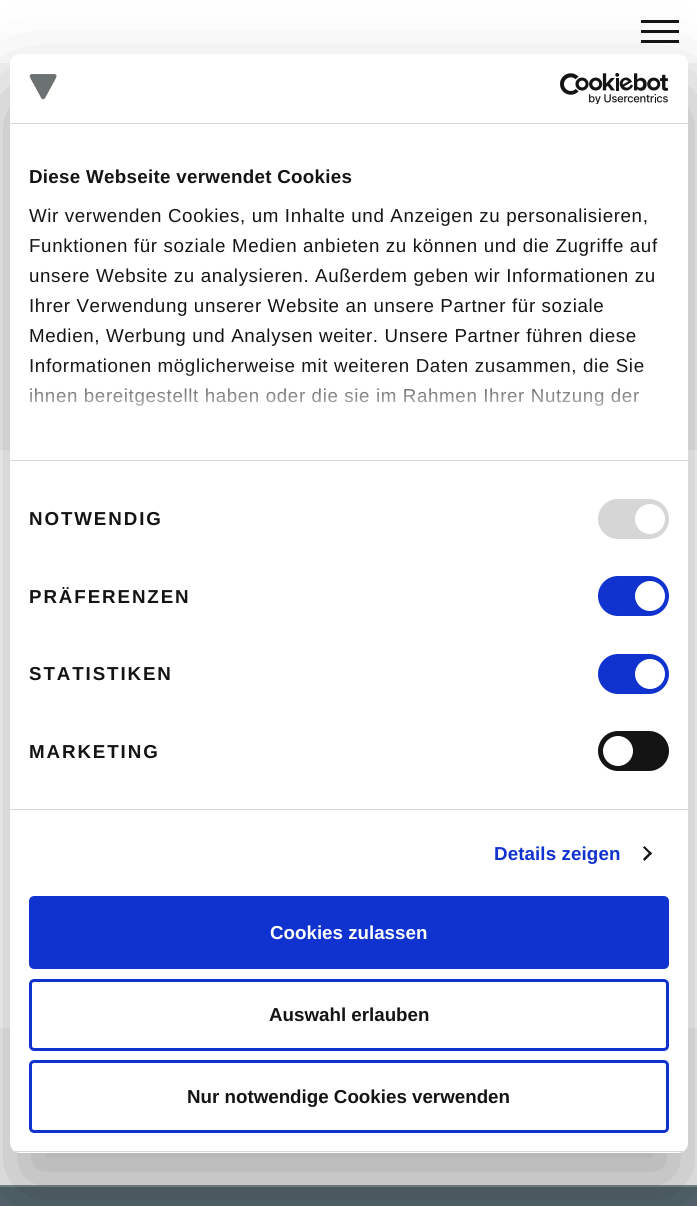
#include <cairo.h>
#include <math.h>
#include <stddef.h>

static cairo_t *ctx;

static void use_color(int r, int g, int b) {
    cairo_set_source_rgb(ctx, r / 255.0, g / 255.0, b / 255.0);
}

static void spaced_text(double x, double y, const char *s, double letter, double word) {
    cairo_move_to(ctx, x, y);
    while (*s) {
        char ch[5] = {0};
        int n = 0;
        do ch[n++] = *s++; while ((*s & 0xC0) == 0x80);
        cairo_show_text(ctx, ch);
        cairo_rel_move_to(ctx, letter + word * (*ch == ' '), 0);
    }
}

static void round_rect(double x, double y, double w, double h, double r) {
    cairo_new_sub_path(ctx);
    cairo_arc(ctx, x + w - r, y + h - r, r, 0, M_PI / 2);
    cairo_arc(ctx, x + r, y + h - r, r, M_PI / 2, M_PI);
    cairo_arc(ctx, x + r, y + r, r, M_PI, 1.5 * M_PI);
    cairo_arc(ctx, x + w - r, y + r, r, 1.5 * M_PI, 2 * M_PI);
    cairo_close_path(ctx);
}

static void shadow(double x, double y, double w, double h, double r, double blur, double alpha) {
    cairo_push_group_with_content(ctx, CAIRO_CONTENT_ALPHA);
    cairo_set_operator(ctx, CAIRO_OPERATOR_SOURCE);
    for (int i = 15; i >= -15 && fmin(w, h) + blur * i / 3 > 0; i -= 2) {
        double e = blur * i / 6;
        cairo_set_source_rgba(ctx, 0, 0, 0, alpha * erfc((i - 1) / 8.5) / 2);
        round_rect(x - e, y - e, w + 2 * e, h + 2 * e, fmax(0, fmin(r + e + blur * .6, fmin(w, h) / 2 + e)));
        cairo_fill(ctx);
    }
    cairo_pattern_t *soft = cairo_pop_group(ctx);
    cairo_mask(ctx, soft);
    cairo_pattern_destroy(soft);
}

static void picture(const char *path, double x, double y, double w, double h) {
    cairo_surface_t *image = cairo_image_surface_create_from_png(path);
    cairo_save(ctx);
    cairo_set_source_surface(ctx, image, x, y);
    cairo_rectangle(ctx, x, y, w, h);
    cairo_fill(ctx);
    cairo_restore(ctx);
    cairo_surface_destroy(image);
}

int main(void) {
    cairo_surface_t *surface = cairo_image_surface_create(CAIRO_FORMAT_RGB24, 697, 1206);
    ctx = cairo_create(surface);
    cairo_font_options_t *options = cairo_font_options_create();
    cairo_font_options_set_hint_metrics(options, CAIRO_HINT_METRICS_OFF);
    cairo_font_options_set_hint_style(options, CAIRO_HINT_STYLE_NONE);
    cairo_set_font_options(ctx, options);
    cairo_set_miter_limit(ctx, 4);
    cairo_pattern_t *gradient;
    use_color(245, 245, 245);
    cairo_paint(ctx);
    use_color(255, 255, 255);
    cairo_rectangle(ctx, 0, 0, 697, 63);
    cairo_fill(ctx);
    use_color(22, 22, 21);
    cairo_rectangle(ctx, 641, 30, 38, 3);
    cairo_fill(ctx);
    cairo_rectangle(ctx, 641, 20, 38, 3);
    cairo_fill(ctx);
    cairo_rectangle(ctx, 641, 40, 38, 3);
    cairo_fill(ctx);
    use_color(255, 255, 255);
    cairo_rectangle(ctx, 0, 450, 697, 578);
    cairo_fill(ctx);
    use_color(87, 104, 112);
    cairo_rectangle(ctx, 0, 1187, 697, 19);
    cairo_fill(ctx);
    use_color(129, 142, 148);
    cairo_rectangle(ctx, 0, 1185, 697, 2);
    cairo_fill(ctx);
    use_color(0, 0, 0);
    shadow(10, 94, 678, 1099, 10, 42.5, 0.3);
    use_color(255, 255, 255);
    round_rect(10, 54, 678, 1099, 10);
    cairo_fill(ctx);
    use_color(214, 214, 214);
    cairo_rectangle(ctx, 10, 123, 678, 1);
    cairo_fill(ctx);
    picture("img1.png", 29, 74, 28, 26);
    picture("img2.png", 560, 73, 109, 31);
    cairo_rectangle(ctx, 10, 460, 678, 1);
    cairo_fill(ctx);
    cairo_select_font_face(ctx, "Liberation Sans", CAIRO_FONT_SLANT_NORMAL, CAIRO_FONT_WEIGHT_BOLD);
    cairo_set_font_size(ctx, 18.75);
    use_color(20, 20, 20);
    spaced_text(29, 183, "Diese Webseite verwendet Cookies", 0.3, 0);
    cairo_select_font_face(ctx, "Liberation Sans", CAIRO_FONT_SLANT_NORMAL, CAIRO_FONT_WEIGHT_NORMAL);
    spaced_text(29, 222, "Wir verwenden Cookies, um Inhalte und Anzeigen zu personalisieren,", 0.62, 0);
    spaced_text(29, 252, "Funktionen für soziale Medien anbieten zu können und die Zugriffe auf", 0.62, 0);
    spaced_text(29, 282, "unsere Website zu analysieren. Außerdem geben wir Informationen zu", 0.62, 0);
    spaced_text(29, 312, "Ihrer Verwendung unserer Website an unsere Partner für soziale", 0.62, 0);
    spaced_text(29, 342, "Medien, Werbung und Analysen weiter. Unsere Partner führen diese", 0.62, 0);
    spaced_text(29, 372, "Informationen möglicherweise mit weiteren Daten zusammen, die Sie", 0.62, 0);
    spaced_text(29, 402, "ihnen bereitgestellt haben oder die sie im Rahmen Ihrer Nutzung der", 0.62, 0);
    gradient = cairo_pattern_create_linear(341, 460, 341, 367);
    cairo_pattern_add_color_stop_rgba(gradient, 0, 1, 1, 1, 1);
    cairo_pattern_add_color_stop_rgba(gradient, 0.5, 1, 1, 1, 0.8);
    cairo_pattern_add_color_stop_rgba(gradient, 1, 1, 1, 1, 0);
    cairo_set_source(ctx, gradient);
    cairo_pattern_destroy(gradient);
    cairo_rectangle(ctx, 30, 368, 613, 38);
    cairo_fill(ctx);
    use_color(214, 214, 214);
    cairo_rectangle(ctx, 10, 809, 678, 1);
    cairo_fill(ctx);
    cairo_select_font_face(ctx, "Liberation Sans", CAIRO_FONT_SLANT_NORMAL, CAIRO_FONT_WEIGHT_BOLD);
    use_color(20, 20, 20);
    spaced_text(29, 525, "NOTWENDIG", 1.9, 0);
    use_color(214, 214, 214);
    round_rect(598, 499, 71, 40, 20);
    cairo_fill(ctx);
    use_color(255, 255, 255);
    cairo_arc(ctx, 650, 519, 15, 0, 2 * M_PI);
    cairo_fill(ctx);
    use_color(20, 20, 20);
    spaced_text(29, 603, "PRÄFERENZEN", 1.9, 0);
    use_color(16, 50, 207);
    round_rect(598, 576, 71, 40, 20);
    cairo_fill(ctx);
    use_color(255, 255, 255);
    cairo_arc(ctx, 650, 596, 15, 0, 2 * M_PI);
    cairo_fill(ctx);
    use_color(20, 20, 20);
    spaced_text(29, 680, "STATISTIKEN", 1.9, 0);
    use_color(16, 50, 207);
    round_rect(598, 654, 71, 40, 20);
    cairo_fill(ctx);
    use_color(255, 255, 255);
    cairo_arc(ctx, 650, 674, 15, 0, 2 * M_PI);
    cairo_fill(ctx);
    use_color(20, 20, 20);
    spaced_text(29, 758, "MARKETING", 1.9, 0);
    round_rect(598, 731, 71, 40, 20);
    cairo_fill(ctx);
    use_color(255, 255, 255);
    cairo_arc(ctx, 618, 751, 15, 0, 2 * M_PI);
    cairo_fill(ctx);
    use_color(16, 50, 207);
    spaced_text(494, 860, "Details zeigen", 0.1, 0);
    use_color(20, 20, 20);
    cairo_new_path(ctx);
    cairo_move_to(ctx, 644.5, 846);
    cairo_line_to(ctx, 652, 853.5);
    cairo_line_to(ctx, 650.5, 855);
    cairo_line_to(ctx, 643, 847.5);
    cairo_close_path(ctx);
    cairo_fill(ctx);
    cairo_new_path(ctx);
    cairo_move_to(ctx, 650.5, 851.5);
    cairo_line_to(ctx, 652, 853.5);
    cairo_line_to(ctx, 644.5, 861);
    cairo_line_to(ctx, 643, 859);
    cairo_close_path(ctx);
    cairo_fill(ctx);
    cairo_save(ctx);
    round_rect(10, 54, 678, 1099, 10);
    cairo_clip(ctx);
    use_color(214, 214, 214);
    cairo_rectangle(ctx, 10, 1151, 678, 1);
    cairo_fill(ctx);
    cairo_restore(ctx);
    use_color(16, 50, 207);
    round_rect(30.5, 897.5, 637, 70, 3.5);
    cairo_fill_preserve(ctx);
    cairo_set_line_width(ctx, 3);
    cairo_stroke(ctx);
    use_color(255, 255, 255);
    cairo_move_to(ctx, 270, 939);
    cairo_show_text(ctx, "Cookies zulassen");
    round_rect(30.5, 980.5, 637, 69, 3.5);
    use_color(16, 50, 207);
    cairo_stroke(ctx);
    use_color(20, 20, 20);
    cairo_move_to(ctx, 269, 1021);
    cairo_show_text(ctx, "Auswahl erlauben");
    round_rect(30.5, 1061.5, 637, 70, 3.5);
    use_color(16, 50, 207);
    cairo_stroke(ctx);
    use_color(20, 20, 20);
    cairo_move_to(ctx, 187, 1103);
    cairo_show_text(ctx, "Nur notwendige Cookies verwenden");
    cairo_surface_write_to_png(surface, "result.png");
    cairo_font_options_destroy(options);
    cairo_destroy(ctx);
    cairo_surface_destroy(surface);
    return 0;
}
